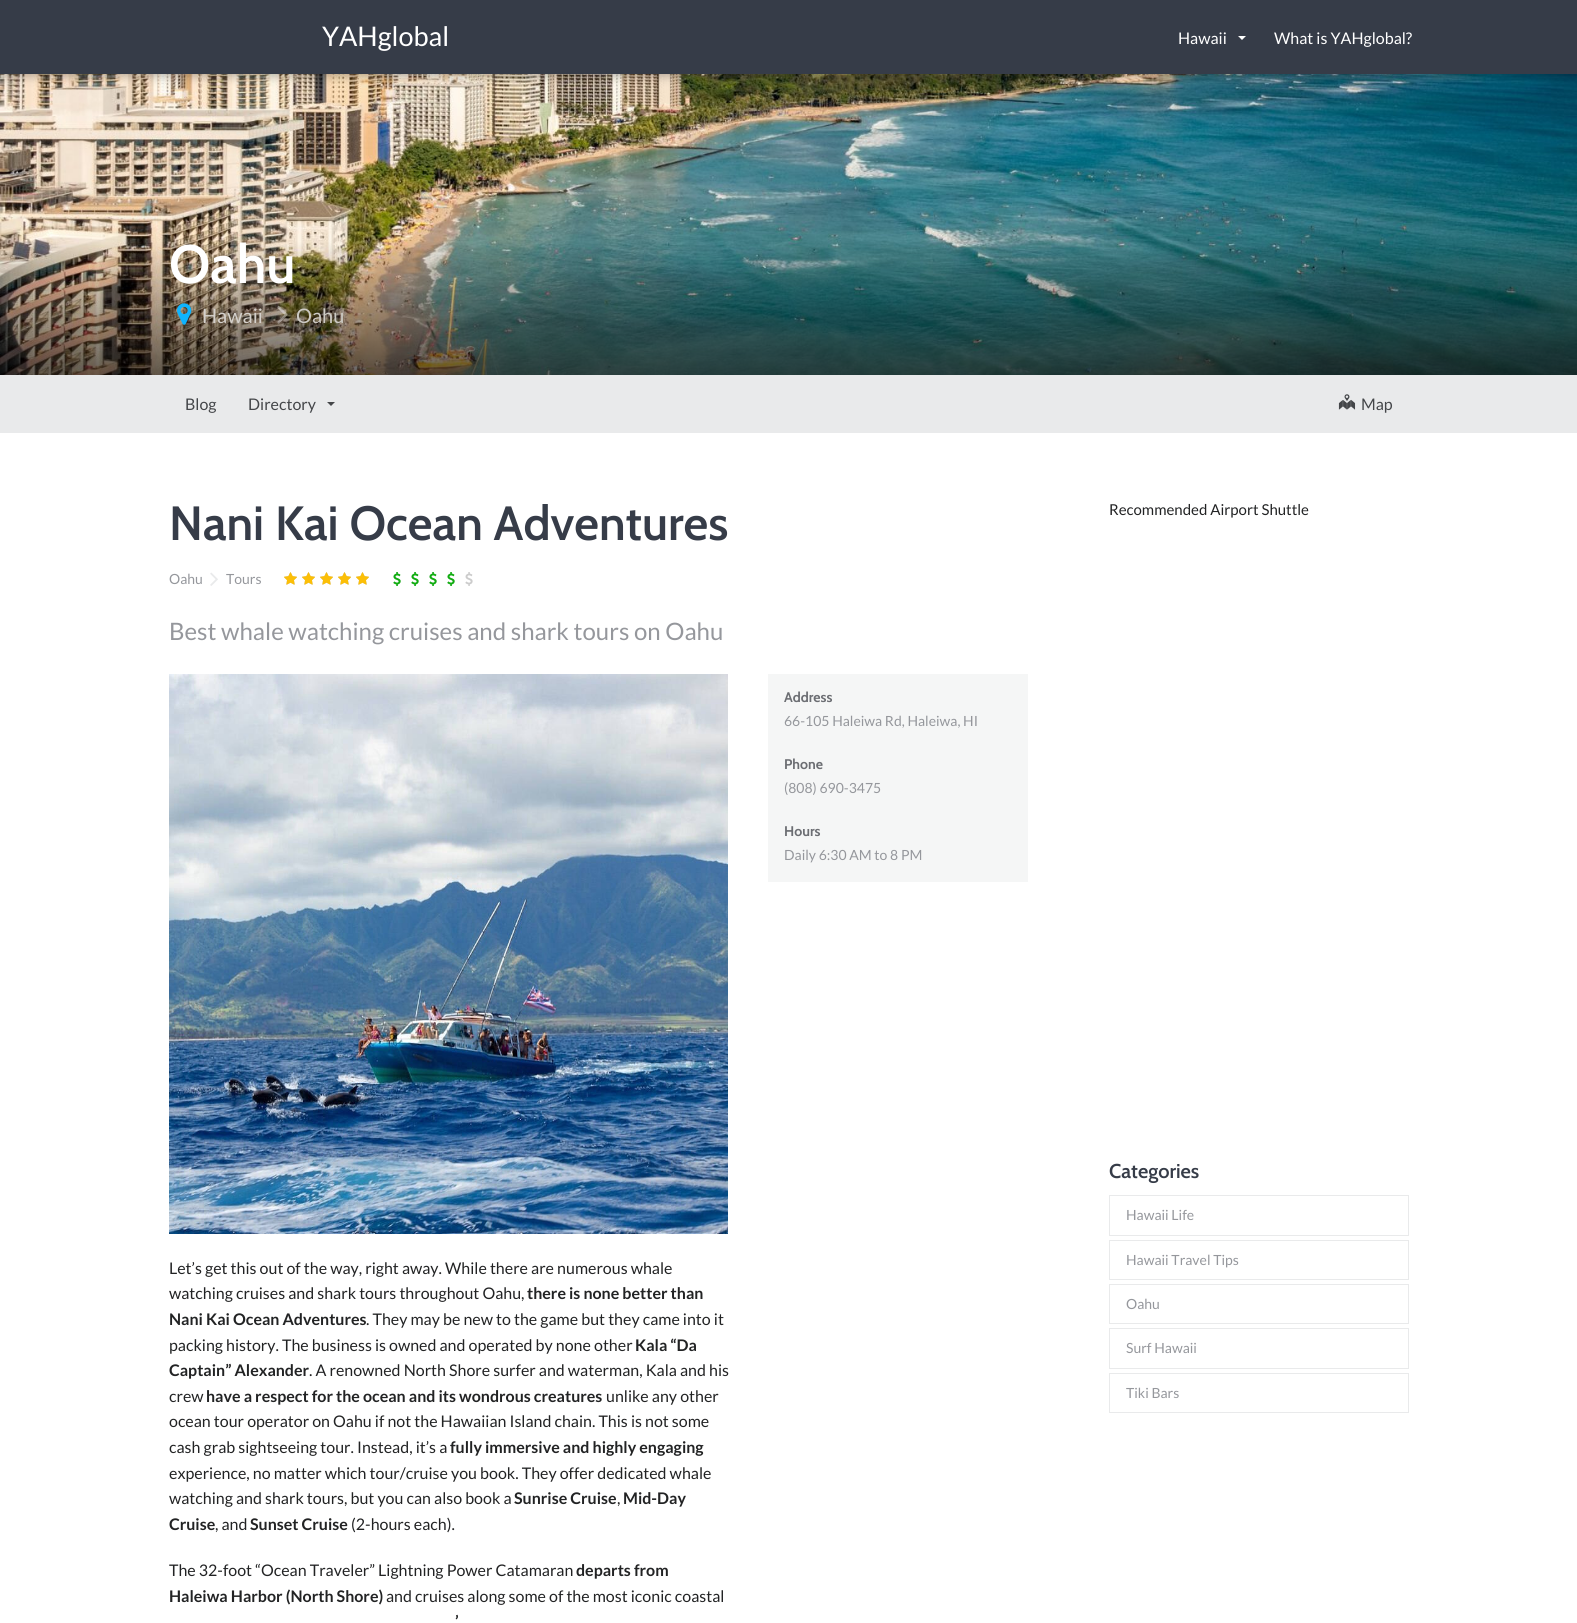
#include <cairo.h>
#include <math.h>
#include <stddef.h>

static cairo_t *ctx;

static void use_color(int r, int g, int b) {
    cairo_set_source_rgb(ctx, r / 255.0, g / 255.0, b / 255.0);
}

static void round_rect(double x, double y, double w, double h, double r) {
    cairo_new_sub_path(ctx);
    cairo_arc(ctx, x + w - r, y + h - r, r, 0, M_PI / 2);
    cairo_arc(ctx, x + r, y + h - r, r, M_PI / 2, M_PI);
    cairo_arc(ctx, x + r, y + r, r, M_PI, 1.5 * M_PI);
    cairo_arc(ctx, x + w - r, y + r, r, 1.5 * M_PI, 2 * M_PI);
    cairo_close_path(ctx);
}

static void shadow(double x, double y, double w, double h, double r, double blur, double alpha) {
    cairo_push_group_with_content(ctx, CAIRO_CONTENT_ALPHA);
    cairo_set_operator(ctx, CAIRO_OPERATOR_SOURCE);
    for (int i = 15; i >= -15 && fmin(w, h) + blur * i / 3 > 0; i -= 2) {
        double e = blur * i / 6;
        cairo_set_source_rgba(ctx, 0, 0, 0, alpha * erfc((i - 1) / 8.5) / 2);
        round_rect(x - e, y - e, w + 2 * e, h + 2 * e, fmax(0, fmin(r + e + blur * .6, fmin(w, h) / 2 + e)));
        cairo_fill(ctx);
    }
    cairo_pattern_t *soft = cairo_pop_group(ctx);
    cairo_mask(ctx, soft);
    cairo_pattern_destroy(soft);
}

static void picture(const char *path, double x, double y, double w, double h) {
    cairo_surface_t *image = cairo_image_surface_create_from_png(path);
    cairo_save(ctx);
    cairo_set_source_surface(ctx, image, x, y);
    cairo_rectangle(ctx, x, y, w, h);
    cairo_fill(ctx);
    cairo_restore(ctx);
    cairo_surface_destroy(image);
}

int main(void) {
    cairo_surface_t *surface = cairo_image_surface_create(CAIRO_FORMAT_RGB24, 1577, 1623);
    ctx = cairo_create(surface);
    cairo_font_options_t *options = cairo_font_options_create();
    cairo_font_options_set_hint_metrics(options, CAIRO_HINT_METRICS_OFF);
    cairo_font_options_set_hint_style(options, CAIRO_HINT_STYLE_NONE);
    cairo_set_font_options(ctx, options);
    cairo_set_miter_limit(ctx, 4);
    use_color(255, 255, 255);
    cairo_paint(ctx);
    picture("img1.png", 0, 74, 1577, 301);
    use_color(0, 0, 0);
    shadow(0, -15, 1577, 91, 0, 5, 0.3);
    use_color(54, 60, 72);
    cairo_rectangle(ctx, 0, 0, 1577, 74);
    cairo_fill(ctx);
    cairo_select_font_face(ctx, "Lato", CAIRO_FONT_SLANT_NORMAL, CAIRO_FONT_WEIGHT_NORMAL);
    cairo_set_font_size(ctx, 27);
    use_color(255, 255, 255);
    cairo_move_to(ctx, 322, 46);
    cairo_show_text(ctx, "YAHglobal");
    cairo_set_font_size(ctx, 16);
    cairo_move_to(ctx, 1178, 44);
    cairo_show_text(ctx, "Hawaii");
    cairo_new_path(ctx);
    cairo_move_to(ctx, 1238, 36);
    cairo_line_to(ctx, 1246, 36);
    cairo_line_to(ctx, 1242, 40);
    cairo_close_path(ctx);
    cairo_fill(ctx);
    cairo_move_to(ctx, 1274, 44);
    cairo_show_text(ctx, "What is YAHglobal?");
    cairo_select_font_face(ctx, "Cabin SemiBold", CAIRO_FONT_SLANT_NORMAL, CAIRO_FONT_WEIGHT_NORMAL);
    cairo_set_font_size(ctx, 54);
    cairo_move_to(ctx, 169, 283);
    cairo_show_text(ctx, "Oahu");
    picture("img2.png", 177, 303, 15, 22);
    cairo_select_font_face(ctx, "Lato", CAIRO_FONT_SLANT_NORMAL, CAIRO_FONT_WEIGHT_NORMAL);
    cairo_set_font_size(ctx, 20);
    use_color(212, 208, 203);
    cairo_move_to(ctx, 202, 323);
    cairo_show_text(ctx, "Hawaii");
    picture("img3.png", 277, 305, 11, 19);
    use_color(205, 202, 196);
    cairo_move_to(ctx, 296, 323);
    cairo_show_text(ctx, "Oahu");
    use_color(233, 234, 235);
    cairo_rectangle(ctx, 0, 375, 1577, 58);
    cairo_fill(ctx);
    cairo_set_font_size(ctx, 16);
    use_color(68, 70, 73);
    cairo_move_to(ctx, 185, 410);
    cairo_show_text(ctx, "Blog");
    cairo_move_to(ctx, 248, 410);
    cairo_show_text(ctx, "Directory");
    cairo_new_path(ctx);
    cairo_move_to(ctx, 327, 402);
    cairo_line_to(ctx, 335, 402);
    cairo_line_to(ctx, 331, 406);
    cairo_close_path(ctx);
    cairo_fill(ctx);
    picture("img4.png", 1338, 394, 18, 16);
    cairo_move_to(ctx, 1361, 410);
    cairo_show_text(ctx, "Map");
    cairo_select_font_face(ctx, "Cabin SemiBold", CAIRO_FONT_SLANT_NORMAL, CAIRO_FONT_WEIGHT_NORMAL);
    cairo_set_font_size(ctx, 48);
    use_color(54, 60, 72);
    cairo_move_to(ctx, 169, 540);
    cairo_show_text(ctx, "Nani Kai Ocean Adventures");
    cairo_select_font_face(ctx, "Lato", CAIRO_FONT_SLANT_NORMAL, CAIRO_FONT_WEIGHT_NORMAL);
    cairo_set_font_size(ctx, 14);
    use_color(149, 151, 156);
    cairo_move_to(ctx, 169, 584);
    cairo_show_text(ctx, "Oahu");
    picture("img5.png", 210, 572, 8, 14);
    cairo_move_to(ctx, 226, 584);
    cairo_show_text(ctx, "Tours");
    picture("img6.png", 284, 572, 13, 13);
    picture("img6.png", 302, 572, 13, 13);
    picture("img6.png", 320, 572, 13, 13);
    picture("img6.png", 338, 572, 13, 13);
    picture("img6.png", 356, 572, 13, 13);
    picture("img7.png", 284, 572, 13, 13);
    picture("img7.png", 302, 572, 13, 13);
    picture("img7.png", 320, 572, 13, 13);
    picture("img7.png", 338, 572, 13, 13);
    picture("img7.png", 356, 572, 13, 13);
    picture("img8.png", 393, 572, 8, 14);
    picture("img8.png", 411, 572, 8, 14);
    picture("img8.png", 429, 572, 8, 14);
    picture("img8.png", 447, 572, 8, 14);
    picture("img8.png", 465, 572, 8, 14);
    picture("img9.png", 393, 572, 8, 14);
    picture("img9.png", 411, 572, 8, 14);
    picture("img9.png", 429, 572, 8, 14);
    picture("img9.png", 447, 572, 8, 14);
    cairo_set_font_size(ctx, 24);
    cairo_move_to(ctx, 169, 640);
    cairo_show_text(ctx, "Best whale watching cruises and shark tours on Oahu");
    use_color(245, 246, 246);
    cairo_rectangle(ctx, 768, 674, 260, 208);
    cairo_fill(ctx);
    cairo_select_font_face(ctx, "Cabin", CAIRO_FONT_SLANT_NORMAL, CAIRO_FONT_WEIGHT_BOLD);
    cairo_set_font_size(ctx, 14);
    use_color(108, 110, 115);
    cairo_move_to(ctx, 784, 702);
    cairo_show_text(ctx, "Address");
    cairo_select_font_face(ctx, "Lato", CAIRO_FONT_SLANT_NORMAL, CAIRO_FONT_WEIGHT_NORMAL);
    use_color(149, 151, 156);
    cairo_move_to(ctx, 784, 726);
    cairo_show_text(ctx, "66-105 Haleiwa Rd, Haleiwa, HI");
    cairo_select_font_face(ctx, "Cabin", CAIRO_FONT_SLANT_NORMAL, CAIRO_FONT_WEIGHT_BOLD);
    use_color(108, 110, 115);
    cairo_move_to(ctx, 784, 769);
    cairo_show_text(ctx, "Phone");
    cairo_select_font_face(ctx, "Lato", CAIRO_FONT_SLANT_NORMAL, CAIRO_FONT_WEIGHT_NORMAL);
    use_color(149, 151, 156);
    cairo_move_to(ctx, 784, 793);
    cairo_show_text(ctx, "(808) 690-3475");
    cairo_select_font_face(ctx, "Cabin", CAIRO_FONT_SLANT_NORMAL, CAIRO_FONT_WEIGHT_BOLD);
    use_color(108, 110, 115);
    cairo_move_to(ctx, 784, 836);
    cairo_show_text(ctx, "Hours");
    cairo_select_font_face(ctx, "Lato", CAIRO_FONT_SLANT_NORMAL, CAIRO_FONT_WEIGHT_NORMAL);
    use_color(149, 151, 156);
    cairo_move_to(ctx, 784, 860);
    cairo_show_text(ctx, "Daily 6:30 AM to 8 PM");
    picture("img10.png", 169, 674, 559, 560);
    cairo_set_font_size(ctx, 16);
    use_color(34, 35, 36);
    cairo_move_to(ctx, 169, 1274);
    cairo_show_text(ctx, "Let’s get this out of the way, right away. While there are numerous whale");
    cairo_move_to(ctx, 169, 1299);
    cairo_show_text(ctx, "watching cruises and shark tours throughout Oahu,");
    cairo_select_font_face(ctx, "Lato", CAIRO_FONT_SLANT_NORMAL, CAIRO_FONT_WEIGHT_BOLD);
    cairo_move_to(ctx, 527, 1299);
    cairo_show_text(ctx, "there is none better than");
    cairo_move_to(ctx, 169, 1325);
    cairo_show_text(ctx, "Nani Kai Ocean Adventures");
    cairo_select_font_face(ctx, "Lato", CAIRO_FONT_SLANT_NORMAL, CAIRO_FONT_WEIGHT_NORMAL);
    cairo_move_to(ctx, 366, 1325);
    cairo_show_text(ctx, ". They may be new to the game but they came into it");
    cairo_move_to(ctx, 169, 1351);
    cairo_show_text(ctx, "packing history. The business is owned and operated by none other");
    cairo_select_font_face(ctx, "Lato", CAIRO_FONT_SLANT_NORMAL, CAIRO_FONT_WEIGHT_BOLD);
    cairo_move_to(ctx, 635, 1351);
    cairo_show_text(ctx, "Kala “Da");
    cairo_move_to(ctx, 169, 1376);
    cairo_show_text(ctx, "Captain” Alexander");
    cairo_select_font_face(ctx, "Lato", CAIRO_FONT_SLANT_NORMAL, CAIRO_FONT_WEIGHT_NORMAL);
    cairo_move_to(ctx, 309, 1376);
    cairo_show_text(ctx, ". A renowned North Shore surfer and waterman, Kala and his");
    cairo_move_to(ctx, 169, 1402);
    cairo_show_text(ctx, "crew");
    cairo_select_font_face(ctx, "Lato", CAIRO_FONT_SLANT_NORMAL, CAIRO_FONT_WEIGHT_BOLD);
    cairo_move_to(ctx, 206, 1402);
    cairo_show_text(ctx, "have a respect for the ocean and its wondrous creatures");
    cairo_select_font_face(ctx, "Lato", CAIRO_FONT_SLANT_NORMAL, CAIRO_FONT_WEIGHT_NORMAL);
    cairo_move_to(ctx, 606, 1402);
    cairo_show_text(ctx, "unlike any other");
    cairo_move_to(ctx, 169, 1427);
    cairo_show_text(ctx, "ocean tour operator on Oahu if not the Hawaiian Island chain. This is not some");
    cairo_move_to(ctx, 169, 1453);
    cairo_show_text(ctx, "cash grab sightseeing tour. Instead, it’s a");
    cairo_select_font_face(ctx, "Lato", CAIRO_FONT_SLANT_NORMAL, CAIRO_FONT_WEIGHT_BOLD);
    cairo_move_to(ctx, 450, 1453);
    cairo_show_text(ctx, "fully immersive and highly engaging");
    cairo_select_font_face(ctx, "Lato", CAIRO_FONT_SLANT_NORMAL, CAIRO_FONT_WEIGHT_NORMAL);
    cairo_move_to(ctx, 169, 1479);
    cairo_show_text(ctx, "experience, no matter which tour/cruise you book. They offer dedicated whale");
    cairo_move_to(ctx, 169, 1504);
    cairo_show_text(ctx, "watching and shark tours, but you can also book a");
    cairo_select_font_face(ctx, "Lato", CAIRO_FONT_SLANT_NORMAL, CAIRO_FONT_WEIGHT_BOLD);
    cairo_move_to(ctx, 514, 1504);
    cairo_show_text(ctx, "Sunrise Cruise");
    cairo_select_font_face(ctx, "Lato", CAIRO_FONT_SLANT_NORMAL, CAIRO_FONT_WEIGHT_NORMAL);
    cairo_move_to(ctx, 617, 1504);
    cairo_show_text(ctx, ",");
    cairo_select_font_face(ctx, "Lato", CAIRO_FONT_SLANT_NORMAL, CAIRO_FONT_WEIGHT_BOLD);
    cairo_move_to(ctx, 623, 1504);
    cairo_show_text(ctx, "Mid-Day");
    cairo_move_to(ctx, 169, 1530);
    cairo_show_text(ctx, "Cruise");
    cairo_select_font_face(ctx, "Lato", CAIRO_FONT_SLANT_NORMAL, CAIRO_FONT_WEIGHT_NORMAL);
    cairo_move_to(ctx, 215, 1530);
    cairo_show_text(ctx, ", and");
    cairo_select_font_face(ctx, "Lato", CAIRO_FONT_SLANT_NORMAL, CAIRO_FONT_WEIGHT_BOLD);
    cairo_move_to(ctx, 250, 1530);
    cairo_show_text(ctx, "Sunset Cruise");
    cairo_select_font_face(ctx, "Lato", CAIRO_FONT_SLANT_NORMAL, CAIRO_FONT_WEIGHT_NORMAL);
    cairo_move_to(ctx, 351, 1530);
    cairo_show_text(ctx, "(2-hours each).");
    cairo_move_to(ctx, 169, 1576);
    cairo_show_text(ctx, "The 32-foot “Ocean Traveler” Lightning Power Catamaran");
    cairo_select_font_face(ctx, "Lato", CAIRO_FONT_SLANT_NORMAL, CAIRO_FONT_WEIGHT_BOLD);
    cairo_move_to(ctx, 576, 1576);
    cairo_show_text(ctx, "departs from");
    cairo_move_to(ctx, 169, 1602);
    cairo_show_text(ctx, "Haleiwa Harbor (North Shore)");
    cairo_select_font_face(ctx, "Lato", CAIRO_FONT_SLANT_NORMAL, CAIRO_FONT_WEIGHT_NORMAL);
    cairo_move_to(ctx, 386, 1602);
    cairo_show_text(ctx, "and cruises along some of the most iconic coastal");
    cairo_select_font_face(ctx, "Lato", CAIRO_FONT_SLANT_NORMAL, CAIRO_FONT_WEIGHT_BOLD);
    cairo_move_to(ctx, 455, 1627);
    cairo_show_text(ctx, "’");
    cairo_select_font_face(ctx, "Lato", CAIRO_FONT_SLANT_NORMAL, CAIRO_FONT_WEIGHT_NORMAL);
    cairo_set_font_size(ctx, 15);
    cairo_move_to(ctx, 1109, 515);
    cairo_show_text(ctx, "Recommended Airport Shuttle");
    cairo_select_font_face(ctx, "Cabin SemiBold", CAIRO_FONT_SLANT_NORMAL, CAIRO_FONT_WEIGHT_NORMAL);
    cairo_set_font_size(ctx, 20);
    use_color(54, 60, 72);
    cairo_move_to(ctx, 1109, 1178);
    cairo_show_text(ctx, "Categories");
    cairo_rectangle(ctx, 1109.5, 1195.5, 299, 40);
    use_color(233, 234, 235);
    cairo_set_line_width(ctx, 1);
    cairo_stroke(ctx);
    cairo_select_font_face(ctx, "Lato", CAIRO_FONT_SLANT_NORMAL, CAIRO_FONT_WEIGHT_NORMAL);
    cairo_set_font_size(ctx, 14);
    use_color(149, 151, 156);
    cairo_move_to(ctx, 1126, 1220);
    cairo_show_text(ctx, "Hawaii Life");
    cairo_rectangle(ctx, 1109.5, 1240.5, 299, 39);
    use_color(233, 234, 235);
    cairo_stroke(ctx);
    use_color(149, 151, 156);
    cairo_move_to(ctx, 1126, 1265);
    cairo_show_text(ctx, "Hawaii Travel Tips");
    cairo_rectangle(ctx, 1109.5, 1284.5, 299, 39);
    use_color(233, 234, 235);
    cairo_stroke(ctx);
    use_color(149, 151, 156);
    cairo_move_to(ctx, 1126, 1309);
    cairo_show_text(ctx, "Oahu");
    cairo_rectangle(ctx, 1109.5, 1328.5, 299, 40);
    use_color(233, 234, 235);
    cairo_stroke(ctx);
    use_color(149, 151, 156);
    cairo_move_to(ctx, 1126, 1353);
    cairo_show_text(ctx, "Surf Hawaii");
    cairo_rectangle(ctx, 1109.5, 1373.5, 299, 39);
    use_color(233, 234, 235);
    cairo_stroke(ctx);
    use_color(149, 151, 156);
    cairo_move_to(ctx, 1126, 1398);
    cairo_show_text(ctx, "Tiki Bars");
    cairo_surface_write_to_png(surface, "result.png");
    cairo_font_options_destroy(options);
    cairo_destroy(ctx);
    cairo_surface_destroy(surface);
    return 0;
}
